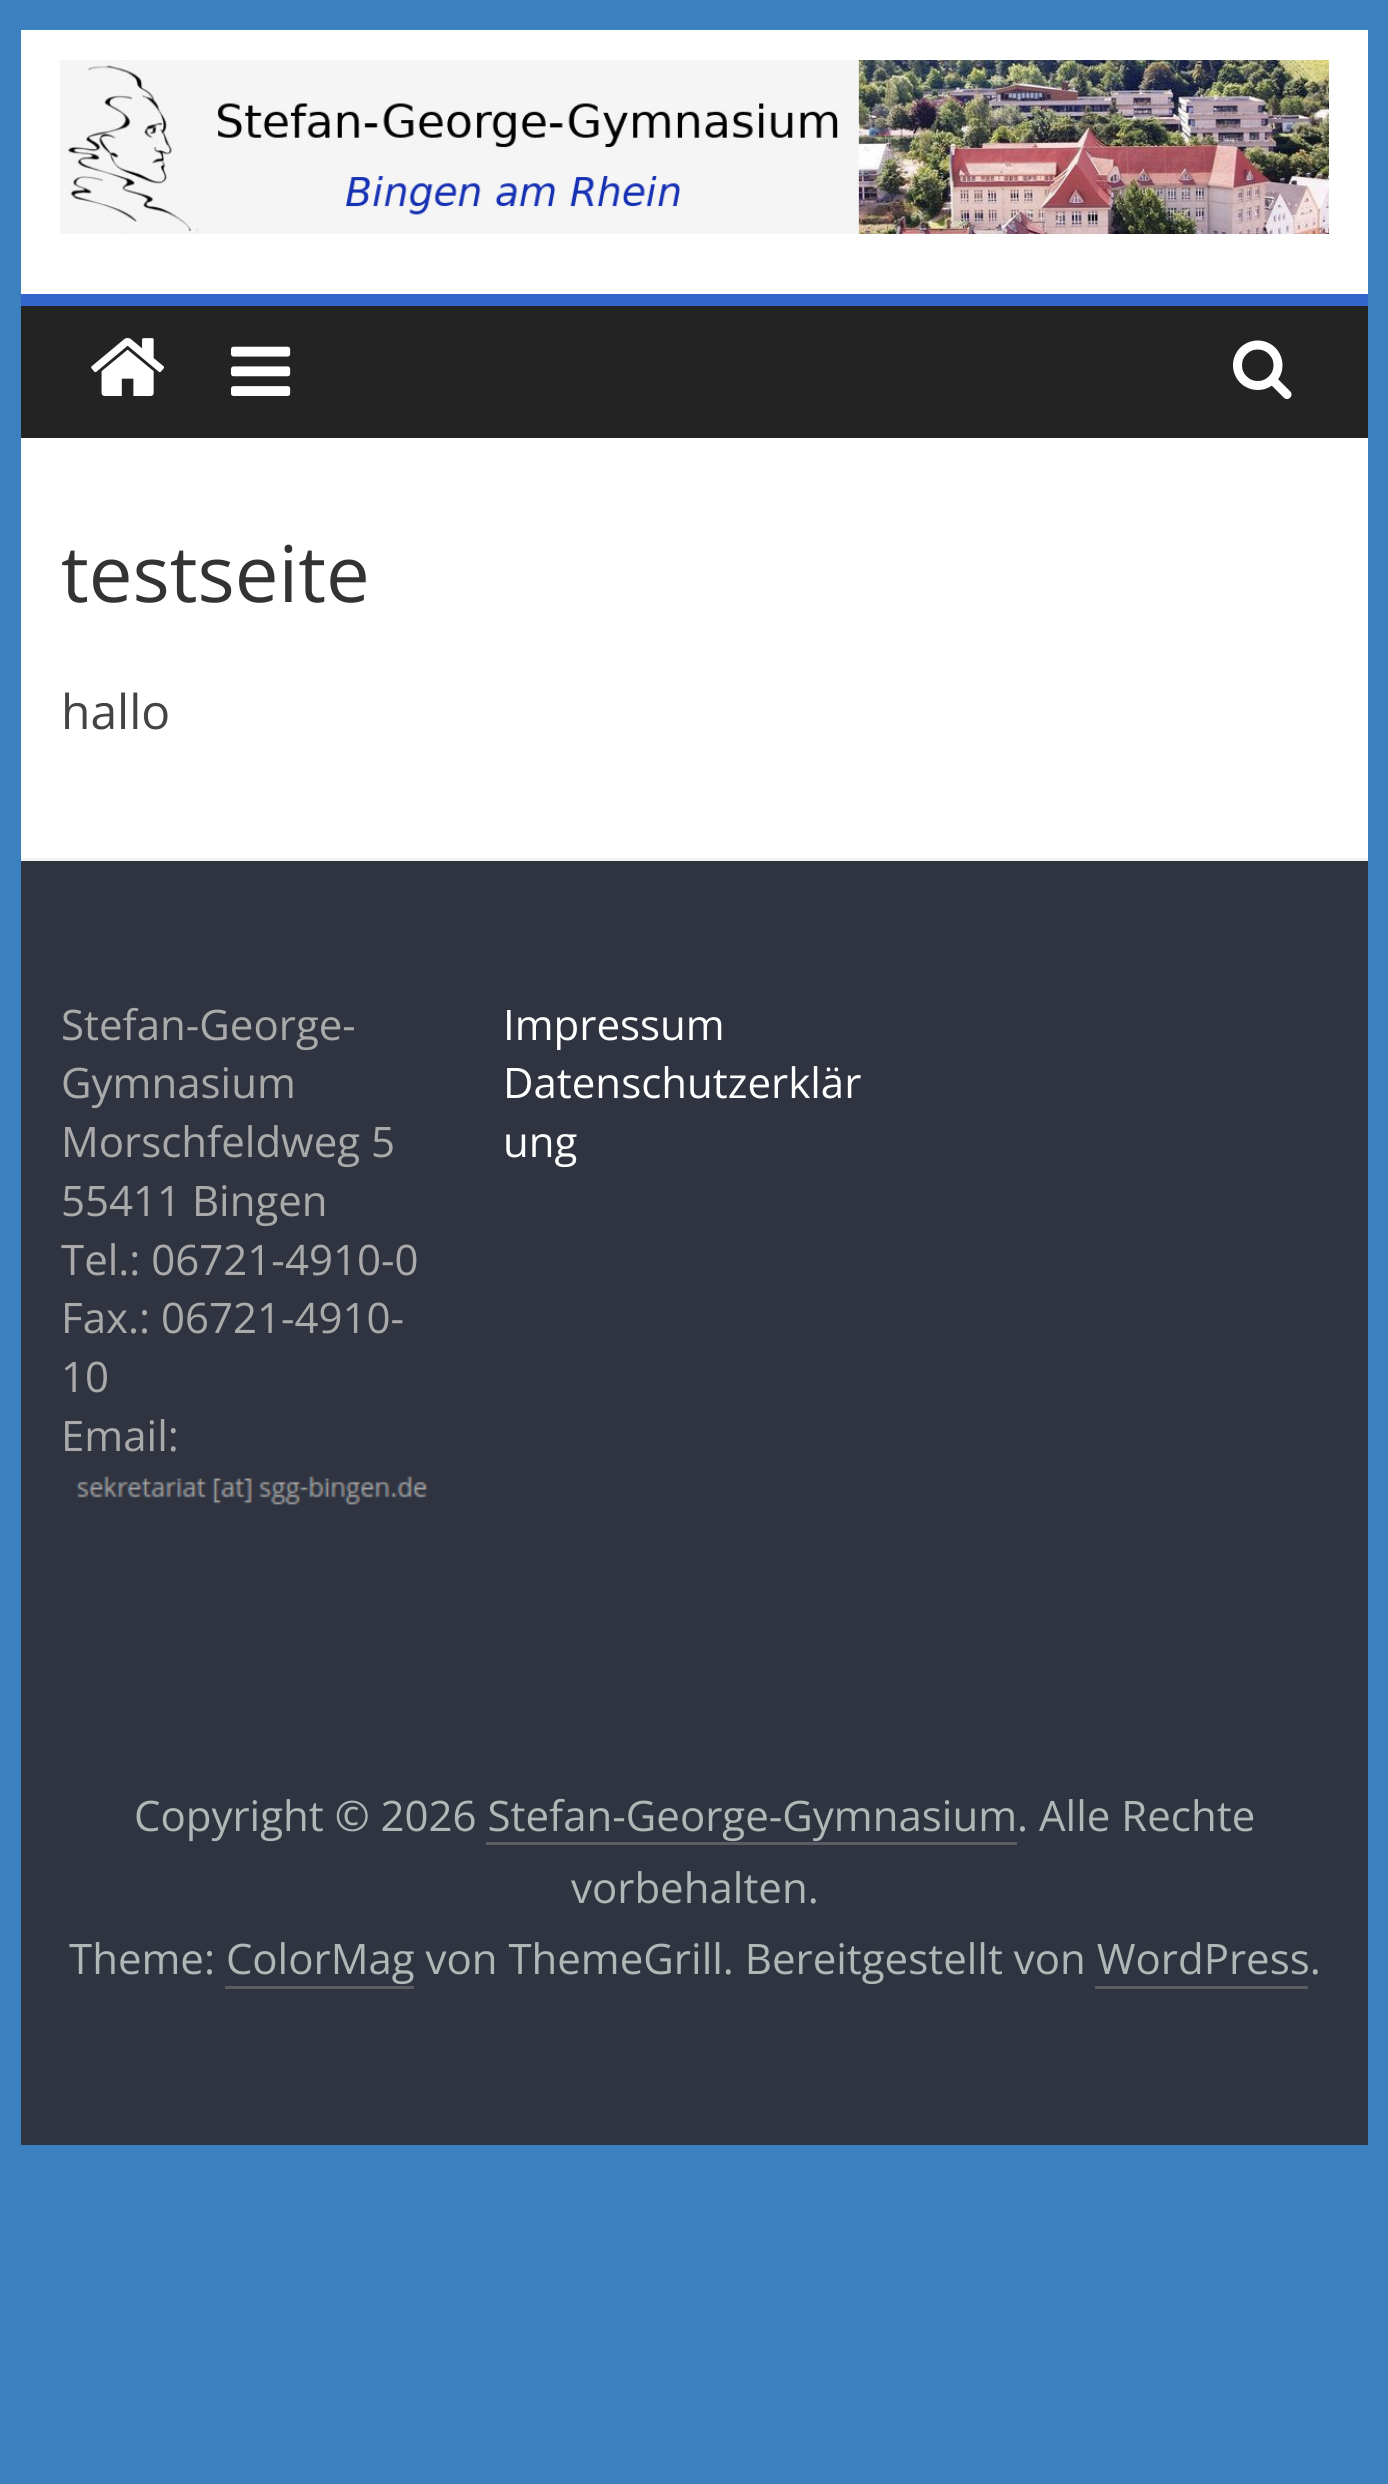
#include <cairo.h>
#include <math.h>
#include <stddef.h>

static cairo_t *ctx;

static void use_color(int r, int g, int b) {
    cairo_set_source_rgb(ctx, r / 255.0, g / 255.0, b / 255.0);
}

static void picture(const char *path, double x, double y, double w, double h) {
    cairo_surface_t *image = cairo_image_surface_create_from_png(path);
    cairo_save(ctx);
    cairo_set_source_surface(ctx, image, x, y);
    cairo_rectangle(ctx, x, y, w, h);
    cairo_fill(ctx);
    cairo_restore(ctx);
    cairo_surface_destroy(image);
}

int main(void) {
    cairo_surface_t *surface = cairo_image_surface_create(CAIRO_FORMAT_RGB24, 1388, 2484);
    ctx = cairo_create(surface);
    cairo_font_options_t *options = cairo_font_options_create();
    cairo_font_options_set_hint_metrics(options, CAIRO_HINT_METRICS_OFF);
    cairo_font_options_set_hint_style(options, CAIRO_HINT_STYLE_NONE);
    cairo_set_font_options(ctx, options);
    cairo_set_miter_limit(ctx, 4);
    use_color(59, 129, 191);
    cairo_paint(ctx);
    use_color(255, 255, 255);
    cairo_rectangle(ctx, 21, 30, 1347, 264);
    cairo_fill(ctx);
    picture("img1.png", 60, 60, 1269, 174);
    use_color(35, 35, 35);
    cairo_rectangle(ctx, 21, 306, 1347, 132);
    cairo_fill(ctx);
    use_color(51, 102, 204);
    cairo_rectangle(ctx, 21, 294, 1347, 12);
    cairo_fill(ctx);
    picture("img2.png", 91, 338, 73, 58);
    picture("img3.png", 231, 346, 60, 50);
    picture("img4.png", 1233, 340, 59, 59);
    use_color(255, 255, 255);
    cairo_rectangle(ctx, 21, 438, 1347, 420);
    cairo_fill(ctx);
    cairo_select_font_face(ctx, "Open Sans", CAIRO_FONT_SLANT_NORMAL, CAIRO_FONT_WEIGHT_NORMAL);
    cairo_set_font_size(ctx, 78);
    use_color(51, 51, 51);
    cairo_move_to(ctx, 61, 602);
    cairo_show_text(ctx, "testseite");
    cairo_set_font_size(ctx, 48);
    use_color(68, 68, 68);
    cairo_move_to(ctx, 61, 729);
    cairo_show_text(ctx, "hallo");
    use_color(48, 52, 64);
    cairo_rectangle(ctx, 21, 861, 1347, 1284);
    cairo_fill(ctx);
    use_color(242, 242, 242);
    cairo_rectangle(ctx, 21, 858, 1347, 3);
    cairo_fill(ctx);
    cairo_set_font_size(ctx, 42);
    use_color(170, 170, 170);
    cairo_move_to(ctx, 61, 1040);
    cairo_show_text(ctx, "Stefan-George-");
    cairo_move_to(ctx, 61, 1098);
    cairo_show_text(ctx, "Gymnasium");
    cairo_move_to(ctx, 61, 1157);
    cairo_show_text(ctx, "Morschfeldweg 5");
    cairo_move_to(ctx, 61, 1216);
    cairo_show_text(ctx, "55411 Bingen");
    cairo_move_to(ctx, 61, 1275);
    cairo_show_text(ctx, "Tel.: 06721-4910-0");
    cairo_move_to(ctx, 61, 1333);
    cairo_show_text(ctx, "Fax.: 06721-4910-");
    cairo_move_to(ctx, 61, 1392);
    cairo_show_text(ctx, "10");
    cairo_move_to(ctx, 61, 1451);
    cairo_show_text(ctx, "Email:");
    picture("img5.png", 76, 1476, 352, 29);
    use_color(255, 255, 255);
    cairo_move_to(ctx, 503, 1040);
    cairo_show_text(ctx, "Impressum");
    cairo_move_to(ctx, 503, 1098);
    cairo_show_text(ctx, "Datenschutzerklär");
    cairo_move_to(ctx, 503, 1157);
    cairo_show_text(ctx, "ung");
    use_color(177, 182, 182);
    cairo_move_to(ctx, 134, 1831);
    cairo_show_text(ctx, "Copyright © 2026 Stefan-George-Gymnasium. Alle Rechte");
    use_color(90, 93, 98);
    cairo_rectangle(ctx, 486, 1842, 531, 3);
    cairo_fill(ctx);
    use_color(177, 182, 182);
    cairo_move_to(ctx, 571, 1903);
    cairo_show_text(ctx, "vorbehalten.");
    cairo_move_to(ctx, 69, 1974);
    cairo_show_text(ctx, "Theme: ColorMag von ThemeGrill. Bereitgestellt von WordPress.");
    use_color(90, 93, 98);
    cairo_rectangle(ctx, 225, 1986, 189, 3);
    cairo_fill(ctx);
    cairo_rectangle(ctx, 1095, 1986, 213, 3);
    cairo_fill(ctx);
    cairo_surface_write_to_png(surface, "result.png");
    cairo_font_options_destroy(options);
    cairo_destroy(ctx);
    cairo_surface_destroy(surface);
    return 0;
}
